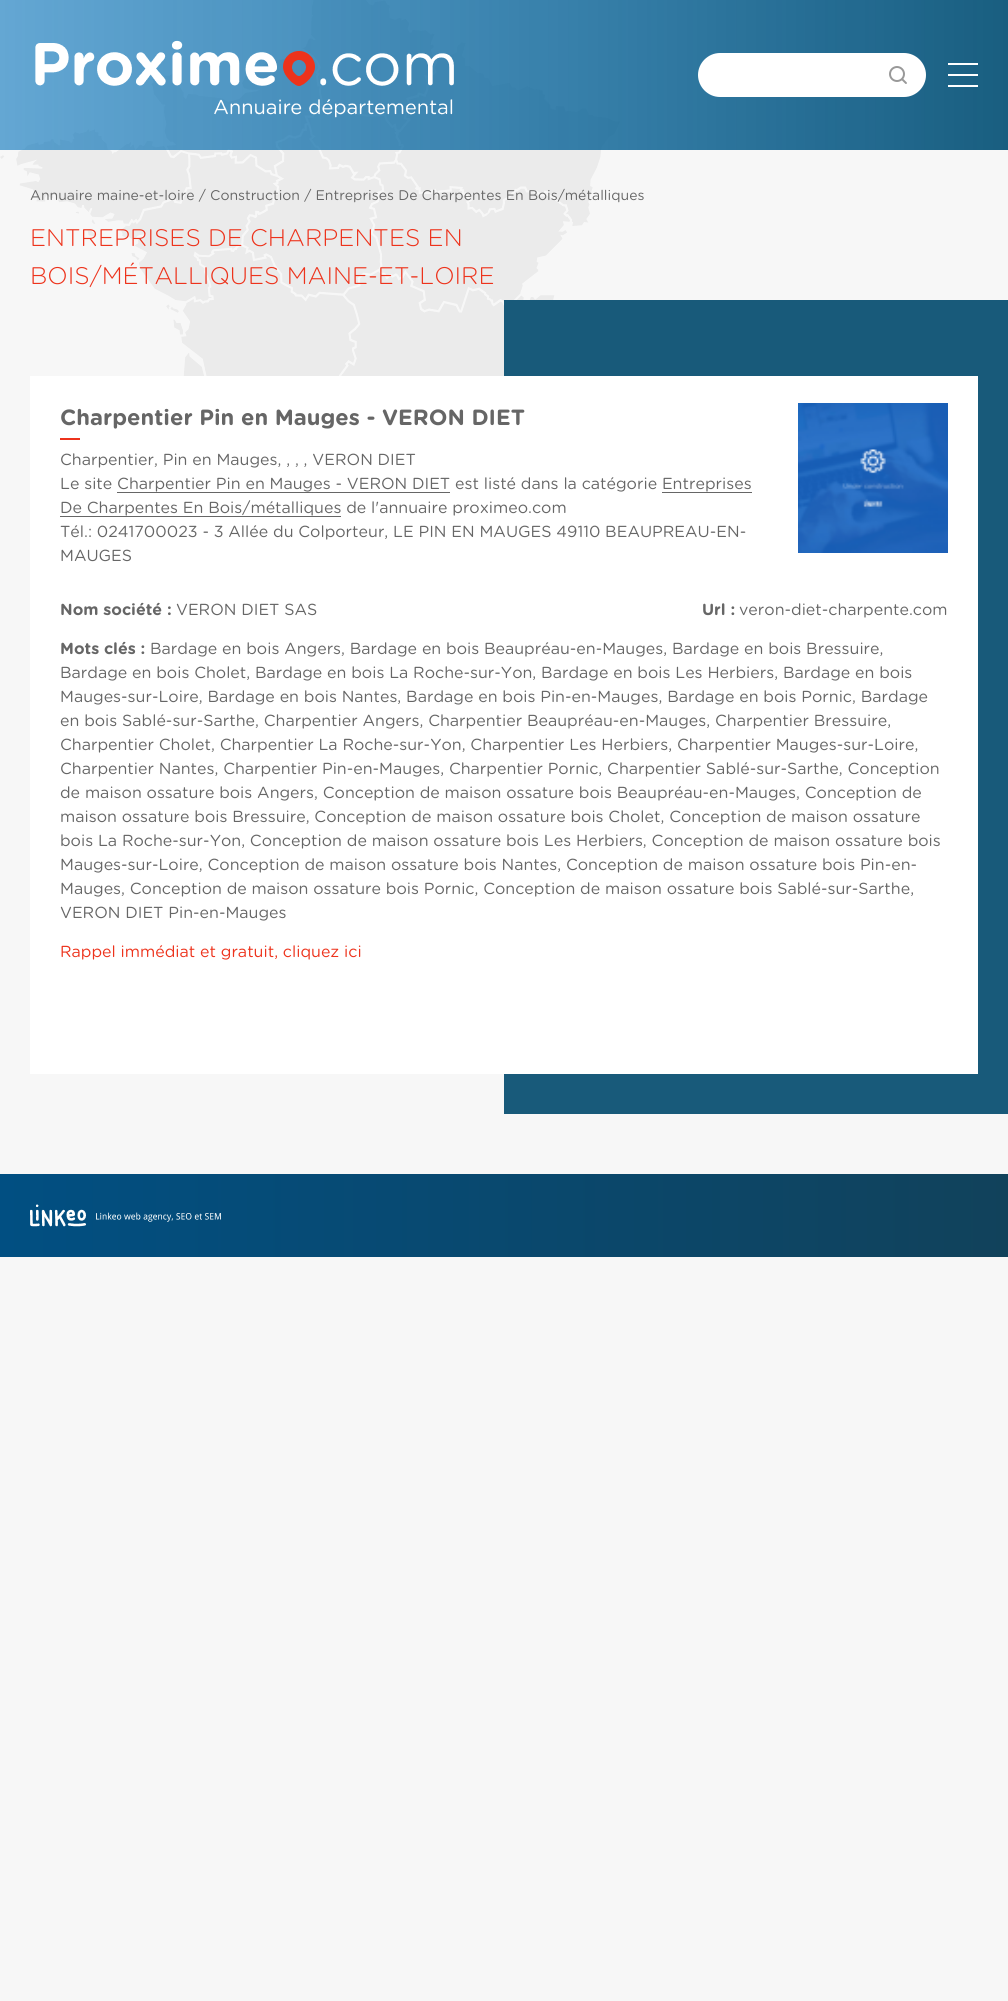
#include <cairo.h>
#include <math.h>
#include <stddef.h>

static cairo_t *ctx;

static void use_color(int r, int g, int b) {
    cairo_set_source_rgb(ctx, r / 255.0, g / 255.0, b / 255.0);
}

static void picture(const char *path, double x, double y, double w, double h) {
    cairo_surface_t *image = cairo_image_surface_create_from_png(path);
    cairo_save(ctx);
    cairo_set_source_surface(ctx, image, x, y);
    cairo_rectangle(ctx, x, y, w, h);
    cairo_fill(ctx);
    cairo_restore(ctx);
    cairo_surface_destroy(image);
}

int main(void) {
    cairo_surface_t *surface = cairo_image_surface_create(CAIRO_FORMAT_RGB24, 1008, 2001);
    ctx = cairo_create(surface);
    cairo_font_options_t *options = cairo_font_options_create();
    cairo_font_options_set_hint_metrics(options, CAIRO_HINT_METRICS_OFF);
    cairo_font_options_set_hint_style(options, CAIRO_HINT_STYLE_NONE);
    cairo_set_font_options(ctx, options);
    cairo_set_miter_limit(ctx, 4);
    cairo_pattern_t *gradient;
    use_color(247, 247, 247);
    cairo_paint(ctx);
    picture("img1.png", 0, 0, 620, 376);
    gradient = cairo_pattern_create_linear(0, 75, 1008, 75);
    cairo_pattern_add_color_stop_rgba(gradient, 0, 0.004, 0.443, 0.733, 0.6);
    cairo_pattern_add_color_stop_rgba(gradient, 1, 0.098, 0.369, 0.502, 1);
    cairo_set_source(ctx, gradient);
    cairo_pattern_destroy(gradient);
    cairo_rectangle(ctx, 0, 0, 1008, 150);
    cairo_fill(ctx);
    picture("img2.png", 35, 40, 419, 78);
    use_color(255, 255, 255);
    cairo_new_path(ctx);
    cairo_move_to(ctx, 720, 53);
    cairo_line_to(ctx, 878, 53);
    cairo_line_to(ctx, 878, 97);
    cairo_line_to(ctx, 720, 97);
    cairo_curve_to(ctx, 708, 97, 698, 87, 698, 75);
    cairo_curve_to(ctx, 698, 63, 708, 53, 720, 53);
    cairo_close_path(ctx);
    cairo_fill(ctx);
    cairo_new_path(ctx);
    cairo_move_to(ctx, 876, 53);
    cairo_line_to(ctx, 904, 53);
    cairo_curve_to(ctx, 916, 53, 926, 63, 926, 75);
    cairo_curve_to(ctx, 926, 87, 916, 97, 904, 97);
    cairo_line_to(ctx, 876, 97);
    cairo_close_path(ctx);
    cairo_fill(ctx);
    picture("img3.png", 889, 66, 18, 18);
    cairo_rectangle(ctx, 948, 63, 30, 2);
    cairo_fill(ctx);
    cairo_rectangle(ctx, 948, 74, 30, 2);
    cairo_fill(ctx);
    cairo_rectangle(ctx, 948, 85, 30, 2);
    cairo_fill(ctx);
    use_color(24, 90, 122);
    cairo_rectangle(ctx, 504, 300, 504, 814);
    cairo_fill(ctx);
    cairo_select_font_face(ctx, "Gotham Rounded", CAIRO_FONT_SLANT_NORMAL, CAIRO_FONT_WEIGHT_NORMAL);
    cairo_set_font_size(ctx, 14);
    use_color(102, 102, 102);
    cairo_move_to(ctx, 30, 200);
    cairo_show_text(ctx, "Annuaire maine-et-loire / Construction / Entreprises De Charpentes En Bois/métalliques");
    cairo_select_font_face(ctx, "Gotham Rounded Light", CAIRO_FONT_SLANT_NORMAL, CAIRO_FONT_WEIGHT_NORMAL);
    cairo_set_font_size(ctx, 24);
    use_color(237, 51, 28);
    cairo_move_to(ctx, 30, 246);
    cairo_show_text(ctx, "ENTREPRISES DE CHARPENTES EN");
    cairo_move_to(ctx, 30, 284);
    cairo_show_text(ctx, "BOIS/MÉTALLIQUES MAINE-ET-LOIRE");
    use_color(255, 255, 255);
    cairo_rectangle(ctx, 30, 376, 948, 698);
    cairo_fill(ctx);
    cairo_select_font_face(ctx, "Gotham Rounded", CAIRO_FONT_SLANT_NORMAL, CAIRO_FONT_WEIGHT_BOLD);
    cairo_set_font_size(ctx, 22);
    use_color(102, 102, 102);
    cairo_move_to(ctx, 60, 425);
    cairo_show_text(ctx, "Charpentier Pin en Mauges - VERON DIET");
    use_color(237, 51, 28);
    cairo_rectangle(ctx, 60, 438, 20, 2);
    cairo_fill(ctx);
    cairo_select_font_face(ctx, "Gotham Rounded", CAIRO_FONT_SLANT_NORMAL, CAIRO_FONT_WEIGHT_NORMAL);
    cairo_set_font_size(ctx, 16);
    use_color(102, 102, 102);
    cairo_move_to(ctx, 60, 465);
    cairo_show_text(ctx, "Charpentier, Pin en Mauges, , , , VERON DIET");
    cairo_move_to(ctx, 60, 489);
    cairo_show_text(ctx, "Le site Charpentier Pin en Mauges - VERON DIET est listé dans la catégorie Entreprises");
    cairo_rectangle(ctx, 117, 492, 333, 1);
    cairo_fill(ctx);
    cairo_move_to(ctx, 60, 513);
    cairo_show_text(ctx, "De Charpentes En Bois/métalliques de l'annuaire proximeo.com");
    cairo_rectangle(ctx, 662, 492, 90, 1);
    cairo_fill(ctx);
    cairo_rectangle(ctx, 60, 516, 281, 1);
    cairo_fill(ctx);
    cairo_move_to(ctx, 60, 537);
    cairo_show_text(ctx, "Tél.: 0241700023 - 3 Allée du Colporteur, LE PIN EN MAUGES 49110 BEAUPREAU-EN-");
    cairo_move_to(ctx, 60, 561);
    cairo_show_text(ctx, "MAUGES");
    picture("img4.png", 798, 403, 150, 150);
    cairo_select_font_face(ctx, "Gotham Rounded", CAIRO_FONT_SLANT_NORMAL, CAIRO_FONT_WEIGHT_BOLD);
    cairo_move_to(ctx, 60, 615);
    cairo_show_text(ctx, "Nom société :");
    cairo_select_font_face(ctx, "Gotham Rounded", CAIRO_FONT_SLANT_NORMAL, CAIRO_FONT_WEIGHT_NORMAL);
    cairo_move_to(ctx, 176, 615);
    cairo_show_text(ctx, "VERON DIET SAS");
    cairo_select_font_face(ctx, "Gotham Rounded", CAIRO_FONT_SLANT_NORMAL, CAIRO_FONT_WEIGHT_BOLD);
    cairo_move_to(ctx, 702, 615);
    cairo_show_text(ctx, "Url :");
    cairo_select_font_face(ctx, "Gotham Rounded", CAIRO_FONT_SLANT_NORMAL, CAIRO_FONT_WEIGHT_NORMAL);
    cairo_move_to(ctx, 739, 615);
    cairo_show_text(ctx, "veron-diet-charpente.com");
    cairo_select_font_face(ctx, "Gotham Rounded", CAIRO_FONT_SLANT_NORMAL, CAIRO_FONT_WEIGHT_BOLD);
    cairo_move_to(ctx, 60, 654);
    cairo_show_text(ctx, "Mots clés :");
    cairo_select_font_face(ctx, "Gotham Rounded", CAIRO_FONT_SLANT_NORMAL, CAIRO_FONT_WEIGHT_NORMAL);
    cairo_move_to(ctx, 150, 654);
    cairo_show_text(ctx, "Bardage en bois Angers, Bardage en bois Beaupréau-en-Mauges, Bardage en bois Bressuire,");
    cairo_move_to(ctx, 60, 678);
    cairo_show_text(ctx, "Bardage en bois Cholet, Bardage en bois La Roche-sur-Yon, Bardage en bois Les Herbiers, Bardage en bois");
    cairo_move_to(ctx, 60, 702);
    cairo_show_text(ctx, "Mauges-sur-Loire, Bardage en bois Nantes, Bardage en bois Pin-en-Mauges, Bardage en bois Pornic, Bardage");
    cairo_move_to(ctx, 60, 726);
    cairo_show_text(ctx, "en bois Sablé-sur-Sarthe, Charpentier Angers, Charpentier Beaupréau-en-Mauges, Charpentier Bressuire,");
    cairo_move_to(ctx, 60, 750);
    cairo_show_text(ctx, "Charpentier Cholet, Charpentier La Roche-sur-Yon, Charpentier Les Herbiers, Charpentier Mauges-sur-Loire,");
    cairo_move_to(ctx, 60, 774);
    cairo_show_text(ctx, "Charpentier Nantes, Charpentier Pin-en-Mauges, Charpentier Pornic, Charpentier Sablé-sur-Sarthe, Conception");
    cairo_move_to(ctx, 60, 798);
    cairo_show_text(ctx, "de maison ossature bois Angers, Conception de maison ossature bois Beaupréau-en-Mauges, Conception de");
    cairo_move_to(ctx, 60, 822);
    cairo_show_text(ctx, "maison ossature bois Bressuire, Conception de maison ossature bois Cholet, Conception de maison ossature");
    cairo_move_to(ctx, 60, 846);
    cairo_show_text(ctx, "bois La Roche-sur-Yon, Conception de maison ossature bois Les Herbiers, Conception de maison ossature bois");
    cairo_move_to(ctx, 60, 870);
    cairo_show_text(ctx, "Mauges-sur-Loire, Conception de maison ossature bois Nantes, Conception de maison ossature bois Pin-en-");
    cairo_move_to(ctx, 60, 894);
    cairo_show_text(ctx, "Mauges, Conception de maison ossature bois Pornic, Conception de maison ossature bois Sablé-sur-Sarthe,");
    cairo_move_to(ctx, 60, 918);
    cairo_show_text(ctx, "VERON DIET Pin-en-Mauges");
    use_color(237, 51, 28);
    cairo_move_to(ctx, 60, 957);
    cairo_show_text(ctx, "Rappel immédiat et gratuit, cliquez ici");
    gradient = cairo_pattern_create_linear(0, 1216, 1008, 1216);
    cairo_pattern_add_color_stop_rgba(gradient, 0, 0.004, 0.31, 0.51, 1);
    cairo_pattern_add_color_stop_rgba(gradient, 1, 0.067, 0.259, 0.357, 1);
    cairo_set_source(ctx, gradient);
    cairo_pattern_destroy(gradient);
    cairo_rectangle(ctx, 0, 1174, 1008, 83);
    cairo_fill(ctx);
    picture("img5.png", 30, 1204, 191, 23);
    cairo_surface_write_to_png(surface, "result.png");
    cairo_font_options_destroy(options);
    cairo_destroy(ctx);
    cairo_surface_destroy(surface);
    return 0;
}
